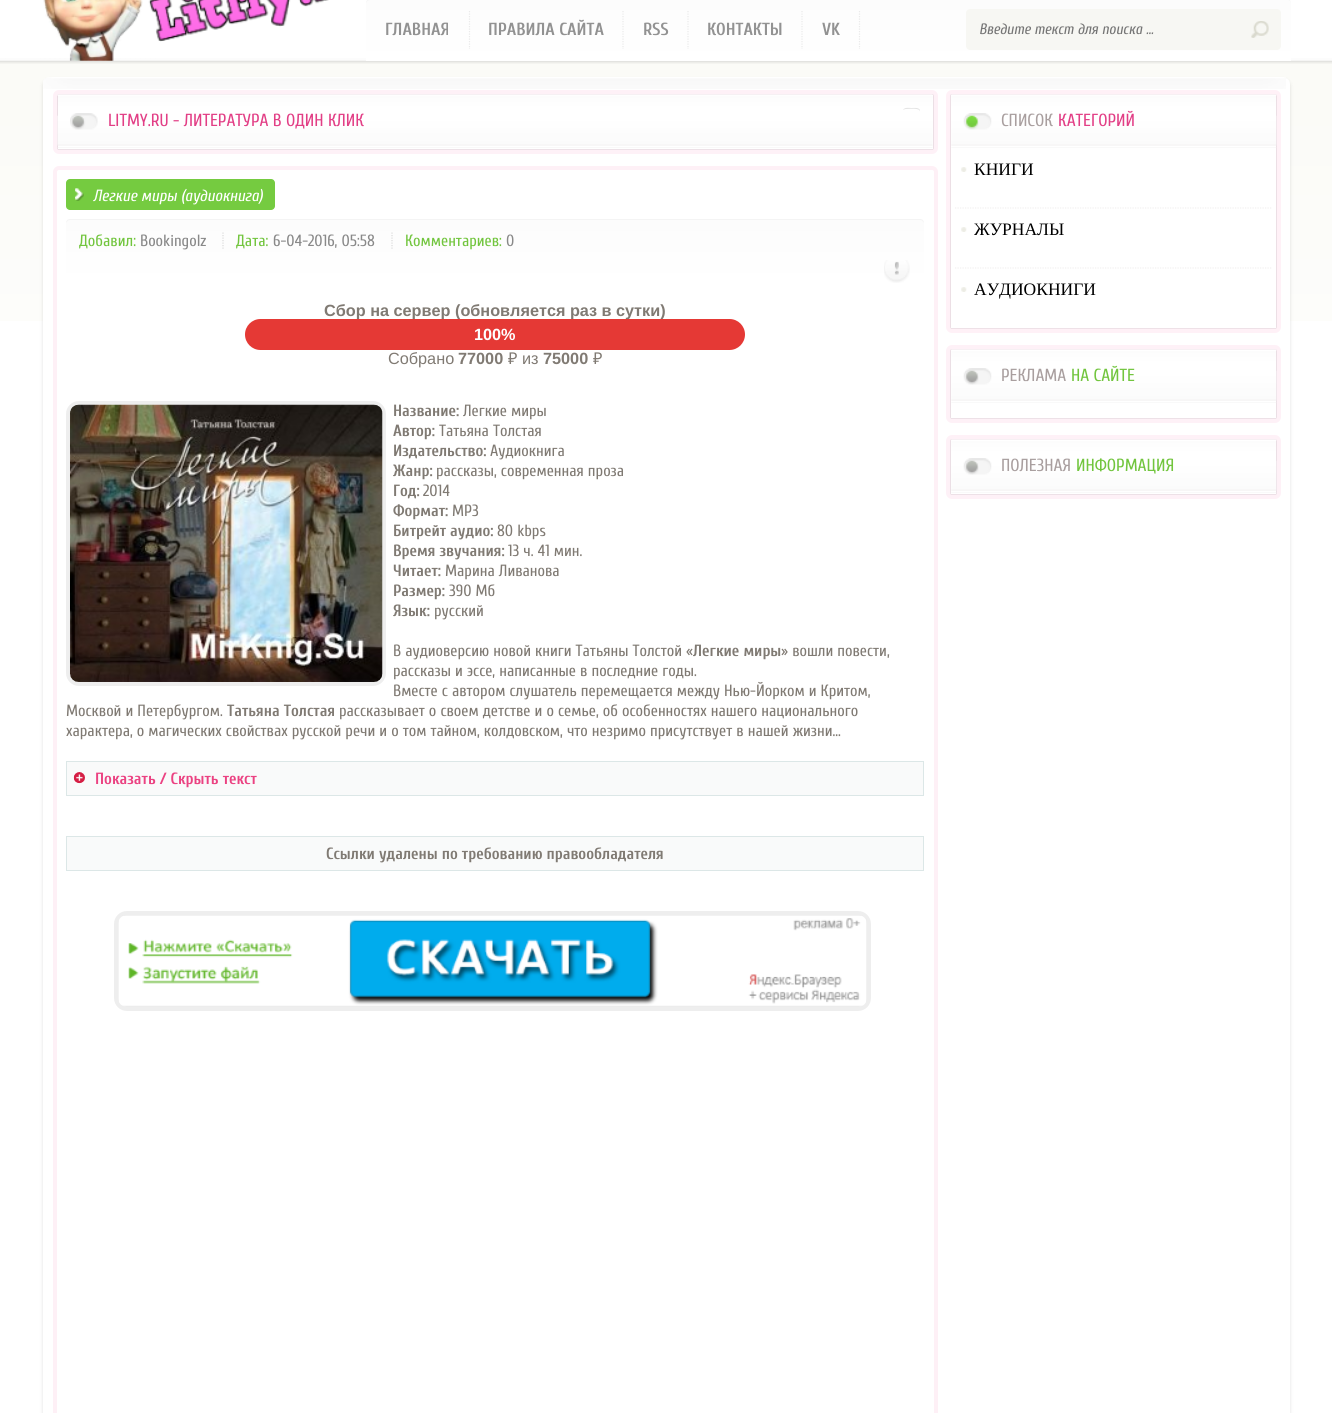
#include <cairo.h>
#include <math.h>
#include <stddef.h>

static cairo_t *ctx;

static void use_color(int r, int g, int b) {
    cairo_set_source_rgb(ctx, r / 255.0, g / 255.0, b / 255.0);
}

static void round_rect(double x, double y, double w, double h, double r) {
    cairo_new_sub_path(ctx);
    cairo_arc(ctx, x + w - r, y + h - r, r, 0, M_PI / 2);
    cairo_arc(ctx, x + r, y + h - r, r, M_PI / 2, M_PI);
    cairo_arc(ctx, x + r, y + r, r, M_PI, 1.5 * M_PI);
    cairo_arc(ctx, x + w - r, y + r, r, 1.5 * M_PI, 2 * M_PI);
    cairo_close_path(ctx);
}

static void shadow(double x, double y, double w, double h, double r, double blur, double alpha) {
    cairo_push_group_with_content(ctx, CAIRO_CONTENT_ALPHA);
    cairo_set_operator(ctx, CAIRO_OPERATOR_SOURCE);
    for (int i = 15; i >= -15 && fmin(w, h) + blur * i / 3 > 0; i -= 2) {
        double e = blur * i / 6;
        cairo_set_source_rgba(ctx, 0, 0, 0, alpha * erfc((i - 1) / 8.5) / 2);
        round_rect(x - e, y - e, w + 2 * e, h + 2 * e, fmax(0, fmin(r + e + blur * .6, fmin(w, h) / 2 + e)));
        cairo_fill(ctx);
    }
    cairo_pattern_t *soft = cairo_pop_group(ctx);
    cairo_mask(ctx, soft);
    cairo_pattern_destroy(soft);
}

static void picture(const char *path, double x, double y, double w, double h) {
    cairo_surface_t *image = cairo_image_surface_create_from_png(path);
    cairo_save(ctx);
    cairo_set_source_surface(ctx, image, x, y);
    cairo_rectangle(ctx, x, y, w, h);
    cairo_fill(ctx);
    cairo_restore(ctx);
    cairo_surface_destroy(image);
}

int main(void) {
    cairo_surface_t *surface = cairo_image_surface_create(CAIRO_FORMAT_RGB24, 1332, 1413);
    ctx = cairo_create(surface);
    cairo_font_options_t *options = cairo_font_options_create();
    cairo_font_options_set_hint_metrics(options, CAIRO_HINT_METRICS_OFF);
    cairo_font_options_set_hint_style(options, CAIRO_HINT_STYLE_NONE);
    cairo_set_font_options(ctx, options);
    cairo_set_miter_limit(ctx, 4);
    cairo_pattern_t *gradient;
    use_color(255, 255, 255);
    cairo_paint(ctx);
    picture("img1.png", 0, 60, 1332, 261);
    picture("img2.png", 0, 0, 1332, 64);
    picture("img3.png", 43, 0, 286, 61);
    gradient = cairo_pattern_create_linear(829, -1.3, 829, 61);
    cairo_pattern_add_color_stop_rgba(gradient, 0, 0.988, 0.988, 0.988, 1);
    cairo_pattern_add_color_stop_rgba(gradient, 1, 1, 1, 1, 1);
    cairo_set_source(ctx, gradient);
    cairo_pattern_destroy(gradient);
    cairo_new_path(ctx);
    cairo_move_to(ctx, 370, -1);
    cairo_line_to(ctx, 1287, -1);
    cairo_curve_to(ctx, 1289, -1, 1291, 1, 1291, 3);
    cairo_line_to(ctx, 1291, 61);
    cairo_line_to(ctx, 366, 61);
    cairo_line_to(ctx, 366, 3);
    cairo_curve_to(ctx, 366, 1, 368, -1, 370, -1);
    cairo_close_path(ctx);
    cairo_fill(ctx);
    use_color(245, 245, 245);
    cairo_new_path(ctx);
    cairo_move_to(ctx, 370, 0);
    cairo_line_to(ctx, 1288, 0);
    cairo_curve_to(ctx, 1290, 0, 1291, 2, 1291, 4);
    cairo_curve_to(ctx, 1291, 1, 1290, -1, 1287, -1);
    cairo_line_to(ctx, 370, -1);
    cairo_curve_to(ctx, 367, -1, 366, 1, 366, 4);
    cairo_curve_to(ctx, 366, 2, 368, 0, 370, 0);
    cairo_close_path(ctx);
    cairo_fill(ctx);
    cairo_new_path(ctx);
    cairo_move_to(ctx, 469.5, 11);
    cairo_line_to(ctx, 469.5, 49);
    use_color(234, 234, 234);
    cairo_set_line_width(ctx, 1.2);
    cairo_set_dash(ctx, (double[]){1.25, 1.25}, 2, 0);
    cairo_stroke(ctx);
    cairo_select_font_face(ctx, "Cuprum", CAIRO_FONT_SLANT_NORMAL, CAIRO_FONT_WEIGHT_BOLD);
    cairo_set_font_size(ctx, 17.5);
    use_color(146, 146, 146);
    cairo_move_to(ctx, 385, 35);
    cairo_show_text(ctx, "ГЛАВНАЯ");
    cairo_new_path(ctx);
    cairo_move_to(ctx, 623, 11);
    cairo_line_to(ctx, 623, 49);
    use_color(234, 234, 234);
    cairo_stroke(ctx);
    use_color(146, 146, 146);
    cairo_move_to(ctx, 488, 35);
    cairo_show_text(ctx, "ПРАВИЛА САЙТА");
    cairo_new_path(ctx);
    cairo_move_to(ctx, 688, 11);
    cairo_line_to(ctx, 688, 49);
    use_color(234, 234, 234);
    cairo_stroke(ctx);
    use_color(146, 146, 146);
    cairo_move_to(ctx, 643, 35);
    cairo_show_text(ctx, "RSS");
    cairo_new_path(ctx);
    cairo_move_to(ctx, 802, 11);
    cairo_line_to(ctx, 802, 49);
    use_color(234, 234, 234);
    cairo_stroke(ctx);
    use_color(146, 146, 146);
    cairo_move_to(ctx, 707, 35);
    cairo_show_text(ctx, "КОНТАКТЫ");
    cairo_new_path(ctx);
    cairo_move_to(ctx, 859.5, 11);
    cairo_line_to(ctx, 859.5, 49);
    use_color(234, 234, 234);
    cairo_stroke(ctx);
    use_color(146, 146, 146);
    cairo_move_to(ctx, 822, 35);
    cairo_show_text(ctx, "VK");
    use_color(247, 247, 243);
    round_rect(966, 9, 315, 41, 4);
    cairo_fill(ctx);
    cairo_select_font_face(ctx, "Cuprum", CAIRO_FONT_SLANT_ITALIC, CAIRO_FONT_WEIGHT_NORMAL);
    cairo_set_font_size(ctx, 15);
    use_color(117, 117, 117);
    cairo_move_to(ctx, 979, 34);
    cairo_show_text(ctx, "Введите текст для поиска ...");
    picture("img4.png", 1251, 21, 18, 17);
    use_color(0, 0, 0);
    shadow(43, 80, 1247, 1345, 6, 2, 0.12);
    use_color(255, 255, 255);
    cairo_new_path(ctx);
    cairo_move_to(ctx, 49, 78);
    cairo_line_to(ctx, 1284, 78);
    cairo_curve_to(ctx, 1287.5, 78, 1290, 80.5, 1290, 84);
    cairo_line_to(ctx, 1290, 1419);
    cairo_line_to(ctx, 43, 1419);
    cairo_line_to(ctx, 43, 84);
    cairo_curve_to(ctx, 43, 80.5, 45.5, 78, 49, 78);
    cairo_close_path(ctx);
    cairo_fill(ctx);
    picture("img5.png", 43, 77, 1243, 12);
    use_color(254, 241, 247);
    round_rect(53, 90, 885, 64, 6);
    cairo_fill(ctx);
    use_color(0, 0, 0);
    shadow(58, 95, 875, 54, 0, 0.5, 0.29);
    use_color(255, 255, 255);
    cairo_rectangle(ctx, 58, 95, 875, 54);
    cairo_fill(ctx);
    picture("img6.png", 57, 94, 876, 54);
    use_color(227, 227, 227);
    cairo_new_path(ctx);
    cairo_move_to(ctx, 906, 109);
    cairo_curve_to(ctx, 909, 109, 919.5, 107.5, 920, 111.5);
    cairo_curve_to(ctx, 920.5, 107, 914, 108, 911.5, 108);
    cairo_curve_to(ctx, 909, 108, 904.5, 107, 903, 110);
    cairo_curve_to(ctx, 904, 109.5, 905, 109, 906, 109);
    cairo_close_path(ctx);
    cairo_fill(ctx);
    picture("img7.png", 70, 113, 28, 17);
    cairo_select_font_face(ctx, "Cuprum", CAIRO_FONT_SLANT_NORMAL, CAIRO_FONT_WEIGHT_NORMAL);
    cairo_set_font_size(ctx, 17.5);
    use_color(226, 63, 134);
    cairo_move_to(ctx, 108, 126);
    cairo_show_text(ctx, "LITMY.RU - ЛИТЕРАТУРА В ОДИН КЛИК");
    round_rect(55, 168, 881, 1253, 4);
    use_color(254, 240, 246);
    cairo_set_line_width(ctx, 4);
    cairo_set_dash(ctx, NULL, 0, 0);
    cairo_stroke(ctx);
    use_color(117, 203, 64);
    round_rect(66, 179, 209, 31, 4);
    cairo_fill(ctx);
    picture("img8.png", 75, 188, 9, 13);
    cairo_select_font_face(ctx, "Cuprum", CAIRO_FONT_SLANT_ITALIC, CAIRO_FONT_WEIGHT_NORMAL);
    cairo_set_font_size(ctx, 16.25);
    use_color(255, 255, 255);
    cairo_move_to(ctx, 93, 201);
    cairo_show_text(ctx, "Легкие миры (аудиокнига)");
    gradient = cairo_pattern_create_linear(495, 219, 495, 284);
    cairo_pattern_add_color_stop_rgba(gradient, 0, 0.988, 0.988, 0.988, 1);
    cairo_pattern_add_color_stop_rgba(gradient, 1, 1, 1, 1, 1);
    cairo_set_source(ctx, gradient);
    cairo_pattern_destroy(gradient);
    cairo_new_path(ctx);
    cairo_move_to(ctx, 70, 219);
    cairo_line_to(ctx, 920, 219);
    cairo_curve_to(ctx, 922, 219, 924, 221, 924, 223);
    cairo_line_to(ctx, 924, 284);
    cairo_line_to(ctx, 66, 284);
    cairo_line_to(ctx, 66, 223);
    cairo_curve_to(ctx, 66, 221, 68, 219, 70, 219);
    cairo_close_path(ctx);
    cairo_fill(ctx);
    use_color(244, 244, 244);
    cairo_new_path(ctx);
    cairo_move_to(ctx, 70, 220);
    cairo_line_to(ctx, 920, 220);
    cairo_curve_to(ctx, 922, 220, 924, 222, 924, 224);
    cairo_curve_to(ctx, 924, 221, 923, 219, 920, 219);
    cairo_line_to(ctx, 70, 219);
    cairo_curve_to(ctx, 67, 219, 66, 221, 66, 224);
    cairo_curve_to(ctx, 66, 222, 68, 220, 70, 220);
    cairo_close_path(ctx);
    cairo_fill(ctx);
    cairo_select_font_face(ctx, "Cuprum", CAIRO_FONT_SLANT_NORMAL, CAIRO_FONT_WEIGHT_NORMAL);
    use_color(114, 197, 62);
    cairo_move_to(ctx, 79, 246);
    cairo_show_text(ctx, "Добавил:");
    use_color(137, 137, 137);
    cairo_move_to(ctx, 140, 246);
    cairo_show_text(ctx, "Bookingolz");
    cairo_new_path(ctx);
    cairo_move_to(ctx, 223, 232.5);
    cairo_line_to(ctx, 223, 249);
    use_color(219, 219, 219);
    cairo_set_line_width(ctx, 1.2);
    cairo_set_dash(ctx, (double[]){1.25, 1.25}, 2, 0);
    cairo_stroke(ctx);
    use_color(114, 197, 62);
    cairo_move_to(ctx, 236, 246);
    cairo_show_text(ctx, "Дата:");
    use_color(137, 137, 137);
    cairo_move_to(ctx, 273, 246);
    cairo_show_text(ctx, "6-04-2016, 05:58");
    cairo_new_path(ctx);
    cairo_move_to(ctx, 392, 232.5);
    cairo_line_to(ctx, 392, 249);
    use_color(219, 219, 219);
    cairo_stroke(ctx);
    use_color(114, 197, 62);
    cairo_move_to(ctx, 405, 246);
    cairo_show_text(ctx, "Комментариев:");
    use_color(137, 137, 137);
    cairo_move_to(ctx, 506, 246);
    cairo_show_text(ctx, "0");
    picture("img9.png", 884, 260, 26, 23);
    cairo_select_font_face(ctx, "Liberation Sans", CAIRO_FONT_SLANT_NORMAL, CAIRO_FONT_WEIGHT_BOLD);
    use_color(128, 122, 115);
    cairo_move_to(ctx, 324, 316);
    cairo_show_text(ctx, "Сбор на сервер (обновляется раз в сутки)");
    use_color(229, 57, 53);
    round_rect(245, 319, 500, 31, 15.5);
    cairo_fill(ctx);
    use_color(255, 255, 255);
    cairo_move_to(ctx, 474, 340);
    cairo_show_text(ctx, "100%");
    cairo_select_font_face(ctx, "Liberation Sans", CAIRO_FONT_SLANT_NORMAL, CAIRO_FONT_WEIGHT_NORMAL);
    use_color(128, 122, 115);
    cairo_move_to(ctx, 388, 364);
    cairo_show_text(ctx, "Собрано");
    cairo_select_font_face(ctx, "Liberation Sans", CAIRO_FONT_SLANT_NORMAL, CAIRO_FONT_WEIGHT_BOLD);
    cairo_move_to(ctx, 458, 364);
    cairo_show_text(ctx, "77000");
    cairo_select_font_face(ctx, "Noto Sans", CAIRO_FONT_SLANT_NORMAL, CAIRO_FONT_WEIGHT_NORMAL);
    cairo_move_to(ctx, 508, 364);
    cairo_show_text(ctx, "₽");
    cairo_select_font_face(ctx, "Liberation Sans", CAIRO_FONT_SLANT_NORMAL, CAIRO_FONT_WEIGHT_NORMAL);
    cairo_move_to(ctx, 522, 364);
    cairo_show_text(ctx, "из");
    cairo_select_font_face(ctx, "Liberation Sans", CAIRO_FONT_SLANT_NORMAL, CAIRO_FONT_WEIGHT_BOLD);
    cairo_move_to(ctx, 543, 364);
    cairo_show_text(ctx, "75000");
    cairo_select_font_face(ctx, "Noto Sans", CAIRO_FONT_SLANT_NORMAL, CAIRO_FONT_WEIGHT_NORMAL);
    cairo_move_to(ctx, 593, 364);
    cairo_show_text(ctx, "₽");
    round_rect(68, 403, 316, 281, 11);
    use_color(238, 238, 238);
    cairo_set_line_width(ctx, 4);
    cairo_set_dash(ctx, NULL, 0, 0);
    cairo_stroke(ctx);
    picture("img10.png", 70, 404, 313, 278);
    cairo_select_font_face(ctx, "Cuprum", CAIRO_FONT_SLANT_NORMAL, CAIRO_FONT_WEIGHT_BOLD);
    use_color(128, 122, 115);
    cairo_move_to(ctx, 393, 416);
    cairo_show_text(ctx, "Название:");
    cairo_select_font_face(ctx, "Cuprum", CAIRO_FONT_SLANT_NORMAL, CAIRO_FONT_WEIGHT_NORMAL);
    cairo_move_to(ctx, 463, 416);
    cairo_show_text(ctx, "Легкие миры");
    cairo_select_font_face(ctx, "Cuprum", CAIRO_FONT_SLANT_NORMAL, CAIRO_FONT_WEIGHT_BOLD);
    cairo_move_to(ctx, 393, 436);
    cairo_show_text(ctx, "Автор:");
    cairo_select_font_face(ctx, "Cuprum", CAIRO_FONT_SLANT_NORMAL, CAIRO_FONT_WEIGHT_NORMAL);
    cairo_move_to(ctx, 439, 436);
    cairo_show_text(ctx, "Татьяна Толстая");
    cairo_select_font_face(ctx, "Cuprum", CAIRO_FONT_SLANT_NORMAL, CAIRO_FONT_WEIGHT_BOLD);
    cairo_move_to(ctx, 393, 456);
    cairo_show_text(ctx, "Издательство:");
    cairo_select_font_face(ctx, "Cuprum", CAIRO_FONT_SLANT_NORMAL, CAIRO_FONT_WEIGHT_NORMAL);
    cairo_move_to(ctx, 490, 456);
    cairo_show_text(ctx, "Аудиокнига");
    cairo_select_font_face(ctx, "Cuprum", CAIRO_FONT_SLANT_NORMAL, CAIRO_FONT_WEIGHT_BOLD);
    cairo_move_to(ctx, 393, 476);
    cairo_show_text(ctx, "Жанр:");
    cairo_select_font_face(ctx, "Cuprum", CAIRO_FONT_SLANT_NORMAL, CAIRO_FONT_WEIGHT_NORMAL);
    cairo_move_to(ctx, 436, 476);
    cairo_show_text(ctx, "рассказы, современная проза");
    cairo_select_font_face(ctx, "Cuprum", CAIRO_FONT_SLANT_NORMAL, CAIRO_FONT_WEIGHT_BOLD);
    cairo_move_to(ctx, 393, 496);
    cairo_show_text(ctx, "Год:");
    cairo_select_font_face(ctx, "Cuprum", CAIRO_FONT_SLANT_NORMAL, CAIRO_FONT_WEIGHT_NORMAL);
    cairo_move_to(ctx, 423, 496);
    cairo_show_text(ctx, "2014");
    cairo_select_font_face(ctx, "Cuprum", CAIRO_FONT_SLANT_NORMAL, CAIRO_FONT_WEIGHT_BOLD);
    cairo_move_to(ctx, 393, 516);
    cairo_show_text(ctx, "Формат:");
    cairo_select_font_face(ctx, "Cuprum", CAIRO_FONT_SLANT_NORMAL, CAIRO_FONT_WEIGHT_NORMAL);
    cairo_move_to(ctx, 452, 516);
    cairo_show_text(ctx, "MP3");
    cairo_select_font_face(ctx, "Cuprum", CAIRO_FONT_SLANT_NORMAL, CAIRO_FONT_WEIGHT_BOLD);
    cairo_move_to(ctx, 393, 536);
    cairo_show_text(ctx, "Битрейт аудио:");
    cairo_select_font_face(ctx, "Cuprum", CAIRO_FONT_SLANT_NORMAL, CAIRO_FONT_WEIGHT_NORMAL);
    cairo_move_to(ctx, 497, 536);
    cairo_show_text(ctx, "80 kbps");
    cairo_select_font_face(ctx, "Cuprum", CAIRO_FONT_SLANT_NORMAL, CAIRO_FONT_WEIGHT_BOLD);
    cairo_move_to(ctx, 393, 556);
    cairo_show_text(ctx, "Время звучания:");
    cairo_select_font_face(ctx, "Cuprum", CAIRO_FONT_SLANT_NORMAL, CAIRO_FONT_WEIGHT_NORMAL);
    cairo_move_to(ctx, 508, 556);
    cairo_show_text(ctx, "13 ч. 41 мин.");
    cairo_select_font_face(ctx, "Cuprum", CAIRO_FONT_SLANT_NORMAL, CAIRO_FONT_WEIGHT_BOLD);
    cairo_move_to(ctx, 393, 576);
    cairo_show_text(ctx, "Читает:");
    cairo_select_font_face(ctx, "Cuprum", CAIRO_FONT_SLANT_NORMAL, CAIRO_FONT_WEIGHT_NORMAL);
    cairo_move_to(ctx, 445, 576);
    cairo_show_text(ctx, "Марина Ливанова");
    cairo_select_font_face(ctx, "Cuprum", CAIRO_FONT_SLANT_NORMAL, CAIRO_FONT_WEIGHT_BOLD);
    cairo_move_to(ctx, 393, 596);
    cairo_show_text(ctx, "Размер:");
    cairo_select_font_face(ctx, "Cuprum", CAIRO_FONT_SLANT_NORMAL, CAIRO_FONT_WEIGHT_NORMAL);
    cairo_move_to(ctx, 449, 596);
    cairo_show_text(ctx, "390 Мб");
    cairo_select_font_face(ctx, "Cuprum", CAIRO_FONT_SLANT_NORMAL, CAIRO_FONT_WEIGHT_BOLD);
    cairo_move_to(ctx, 393, 616);
    cairo_show_text(ctx, "Язык:");
    cairo_select_font_face(ctx, "Cuprum", CAIRO_FONT_SLANT_NORMAL, CAIRO_FONT_WEIGHT_NORMAL);
    cairo_move_to(ctx, 434, 616);
    cairo_show_text(ctx, "русский");
    cairo_move_to(ctx, 393, 656);
    cairo_show_text(ctx, "В аудиоверсию новой книги Татьяны Толстой «");
    cairo_select_font_face(ctx, "Cuprum", CAIRO_FONT_SLANT_NORMAL, CAIRO_FONT_WEIGHT_BOLD);
    cairo_move_to(ctx, 693, 656);
    cairo_show_text(ctx, "Легкие миры");
    cairo_select_font_face(ctx, "Cuprum", CAIRO_FONT_SLANT_NORMAL, CAIRO_FONT_WEIGHT_NORMAL);
    cairo_move_to(ctx, 781, 656);
    cairo_show_text(ctx, "» вошли повести,");
    cairo_move_to(ctx, 393, 676);
    cairo_show_text(ctx, "рассказы и эссе, написанные в последние годы.");
    cairo_move_to(ctx, 393, 696);
    cairo_show_text(ctx, "Вместе с автором слушатель перемещается между Нью-Йорком и Критом,");
    cairo_move_to(ctx, 66, 716);
    cairo_show_text(ctx, "Москвой и Петербургом.");
    cairo_select_font_face(ctx, "Cuprum", CAIRO_FONT_SLANT_NORMAL, CAIRO_FONT_WEIGHT_BOLD);
    cairo_move_to(ctx, 227, 716);
    cairo_show_text(ctx, "Татьяна Толстая");
    cairo_select_font_face(ctx, "Cuprum", CAIRO_FONT_SLANT_NORMAL, CAIRO_FONT_WEIGHT_NORMAL);
    cairo_move_to(ctx, 339, 716);
    cairo_show_text(ctx, "рассказывает о своем детстве и о семье, об особенностях нашего национального");
    cairo_move_to(ctx, 66, 736);
    cairo_show_text(ctx, "характера, о магических свойствах русской речи и о том тайном, колдовском, что незримо присутствует в нашей жизни…");
    use_color(249, 250, 250);
    cairo_rectangle(ctx, 66.5, 761.5, 857, 34);
    cairo_fill_preserve(ctx);
    use_color(220, 231, 231);
    cairo_set_line_width(ctx, 1);
    cairo_stroke(ctx);
    picture("img11.png", 73, 772, 12, 12);
    cairo_select_font_face(ctx, "Cuprum", CAIRO_FONT_SLANT_NORMAL, CAIRO_FONT_WEIGHT_BOLD);
    use_color(235, 66, 130);
    cairo_move_to(ctx, 95, 784);
    cairo_show_text(ctx, "Показать / Скрыть текст");
    use_color(249, 250, 250);
    cairo_rectangle(ctx, 66.5, 836.5, 857, 34);
    cairo_fill_preserve(ctx);
    use_color(220, 231, 231);
    cairo_stroke(ctx);
    use_color(128, 122, 115);
    cairo_move_to(ctx, 326, 859);
    cairo_show_text(ctx, "Ссылки удалены по требованию правообладателя");
    round_rect(116, 913, 753, 96, 11);
    use_color(238, 238, 238);
    cairo_set_line_width(ctx, 4);
    cairo_stroke(ctx);
    picture("img12.png", 118, 915, 749, 92);
    use_color(255, 241, 247);
    round_rect(946, 90, 335, 243, 6);
    cairo_fill(ctx);
    use_color(0, 0, 0);
    shadow(951, 95, 325, 233, 0, 0.5, 0.29);
    use_color(255, 255, 255);
    cairo_rectangle(ctx, 951, 95, 325, 233);
    cairo_fill(ctx);
    picture("img13.png", 951, 94, 326, 54);
    picture("img14.png", 963, 113, 29, 17);
    cairo_select_font_face(ctx, "Cuprum", CAIRO_FONT_SLANT_NORMAL, CAIRO_FONT_WEIGHT_NORMAL);
    cairo_set_font_size(ctx, 17.5);
    use_color(169, 159, 159);
    cairo_move_to(ctx, 1001, 126);
    cairo_show_text(ctx, "СПИСОК");
    use_color(226, 63, 134);
    cairo_move_to(ctx, 1058, 126);
    cairo_show_text(ctx, "КАТЕГОРИЙ");
    picture("img15.png", 961, 167, 6, 5);
    cairo_select_font_face(ctx, "Liberation Serif", CAIRO_FONT_SLANT_NORMAL, CAIRO_FONT_WEIGHT_NORMAL);
    use_color(0, 0, 0);
    cairo_move_to(ctx, 974, 175);
    cairo_show_text(ctx, "КНИГИ");
    picture("img15.png", 961, 227, 6, 5);
    cairo_new_path(ctx);
    cairo_move_to(ctx, 955, 208);
    cairo_line_to(ctx, 1272.5, 208);
    use_color(241, 240, 240);
    cairo_set_line_width(ctx, 1.2);
    cairo_set_dash(ctx, (double[]){1.25, 1.25}, 2, 0);
    cairo_stroke(ctx);
    use_color(0, 0, 0);
    cairo_move_to(ctx, 974, 235);
    cairo_show_text(ctx, "ЖУРНАЛЫ");
    picture("img15.png", 961, 287, 6, 5);
    cairo_new_path(ctx);
    cairo_move_to(ctx, 955, 268);
    cairo_line_to(ctx, 1272.5, 268);
    use_color(241, 240, 240);
    cairo_stroke(ctx);
    use_color(0, 0, 0);
    cairo_move_to(ctx, 974, 295);
    cairo_show_text(ctx, "АУДИОКНИГИ");
    use_color(254, 241, 247);
    round_rect(946, 345, 335, 78, 6);
    cairo_fill(ctx);
    use_color(0, 0, 0);
    shadow(951, 350, 325, 68, 0, 0.5, 0.29);
    use_color(255, 255, 255);
    cairo_rectangle(ctx, 951, 350, 325, 68);
    cairo_fill(ctx);
    picture("img16.png", 951, 349, 326, 54);
    picture("img17.png", 963, 368, 29, 17);
    cairo_select_font_face(ctx, "Cuprum", CAIRO_FONT_SLANT_NORMAL, CAIRO_FONT_WEIGHT_NORMAL);
    use_color(169, 159, 159);
    cairo_move_to(ctx, 1001, 381);
    cairo_show_text(ctx, "РЕКЛАМА");
    use_color(114, 197, 62);
    cairo_move_to(ctx, 1071, 381);
    cairo_show_text(ctx, "НА САЙТЕ");
    use_color(254, 241, 247);
    round_rect(946, 435, 335, 64, 6);
    cairo_fill(ctx);
    use_color(0, 0, 0);
    shadow(951, 440, 325, 54, 0, 0.5, 0.29);
    use_color(255, 255, 255);
    cairo_rectangle(ctx, 951, 440, 325, 54);
    cairo_fill(ctx);
    picture("img18.png", 951, 439, 326, 54);
    picture("img17.png", 963, 458, 29, 17);
    use_color(169, 159, 159);
    cairo_move_to(ctx, 1001, 471);
    cairo_show_text(ctx, "ПОЛЕЗНАЯ");
    use_color(114, 197, 62);
    cairo_move_to(ctx, 1076, 471);
    cairo_show_text(ctx, "ИНФОРМАЦИЯ");
    cairo_surface_write_to_png(surface, "result.png");
    cairo_font_options_destroy(options);
    cairo_destroy(ctx);
    cairo_surface_destroy(surface);
    return 0;
}
